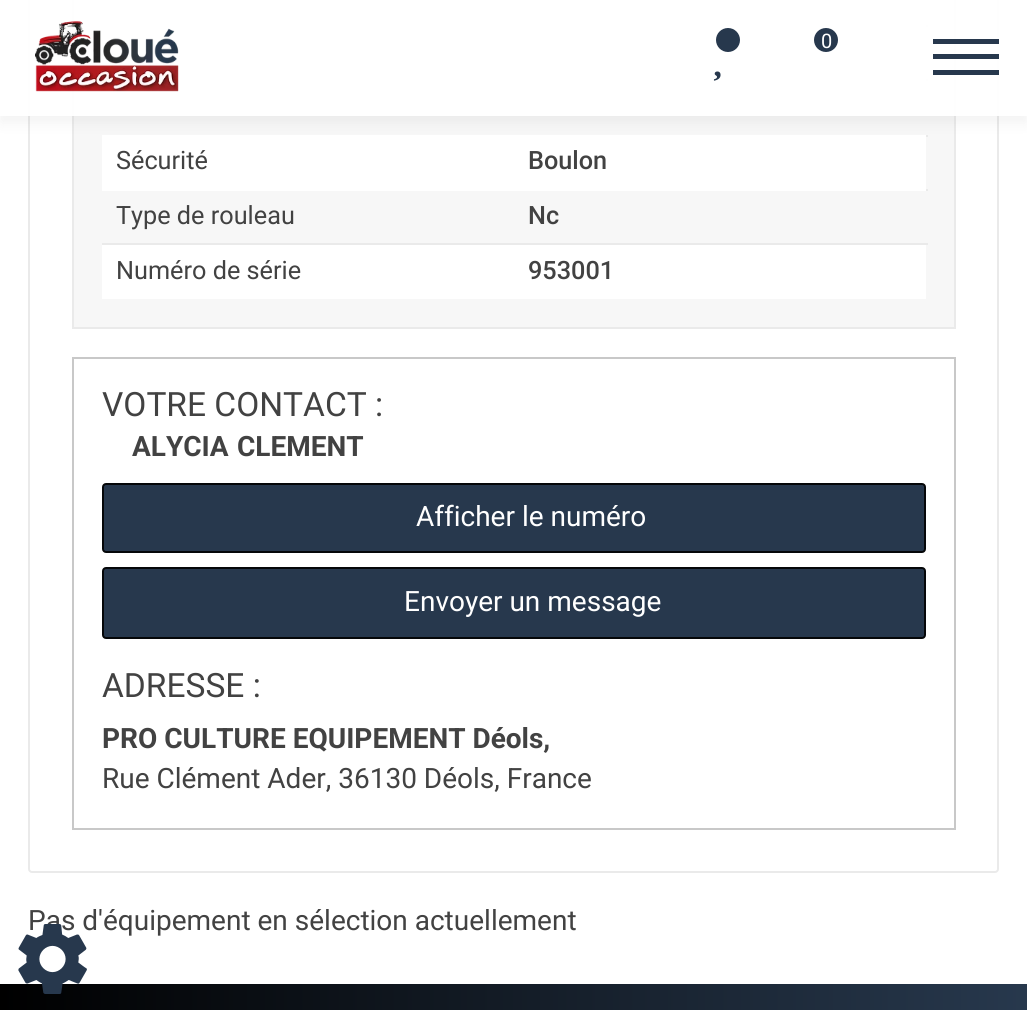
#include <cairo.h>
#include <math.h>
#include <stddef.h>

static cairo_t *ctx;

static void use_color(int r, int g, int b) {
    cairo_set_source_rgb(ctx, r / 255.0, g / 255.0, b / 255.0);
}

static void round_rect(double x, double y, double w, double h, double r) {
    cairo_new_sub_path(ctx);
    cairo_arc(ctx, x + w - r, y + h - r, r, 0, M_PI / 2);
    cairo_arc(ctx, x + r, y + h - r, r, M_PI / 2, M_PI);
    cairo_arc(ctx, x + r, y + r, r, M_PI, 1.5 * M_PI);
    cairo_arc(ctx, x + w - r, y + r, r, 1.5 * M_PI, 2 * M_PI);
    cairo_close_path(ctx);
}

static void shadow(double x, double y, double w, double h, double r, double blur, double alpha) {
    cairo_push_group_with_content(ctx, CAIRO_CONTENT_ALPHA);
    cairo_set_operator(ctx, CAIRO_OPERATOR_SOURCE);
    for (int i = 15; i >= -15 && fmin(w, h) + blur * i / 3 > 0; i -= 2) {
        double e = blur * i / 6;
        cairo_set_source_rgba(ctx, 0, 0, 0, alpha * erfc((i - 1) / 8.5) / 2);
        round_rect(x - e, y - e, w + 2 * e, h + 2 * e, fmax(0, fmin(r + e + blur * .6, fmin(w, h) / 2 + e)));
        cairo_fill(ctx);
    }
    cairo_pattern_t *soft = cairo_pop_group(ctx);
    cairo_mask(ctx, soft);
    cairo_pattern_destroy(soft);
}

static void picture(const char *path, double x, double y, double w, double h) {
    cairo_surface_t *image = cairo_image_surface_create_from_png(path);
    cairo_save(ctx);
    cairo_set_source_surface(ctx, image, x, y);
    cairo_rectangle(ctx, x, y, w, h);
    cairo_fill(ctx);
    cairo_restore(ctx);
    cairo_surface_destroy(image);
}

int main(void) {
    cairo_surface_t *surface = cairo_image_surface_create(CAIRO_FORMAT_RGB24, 1027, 1010);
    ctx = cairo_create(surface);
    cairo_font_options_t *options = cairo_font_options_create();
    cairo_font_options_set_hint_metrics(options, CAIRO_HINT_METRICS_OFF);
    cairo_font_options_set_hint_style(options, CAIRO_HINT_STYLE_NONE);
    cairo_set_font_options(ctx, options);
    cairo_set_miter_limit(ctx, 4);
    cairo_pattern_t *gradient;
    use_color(255, 255, 255);
    cairo_paint(ctx);
    round_rect(29, -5, 969, 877, 3);
    use_color(234, 234, 234);
    cairo_stroke(ctx);
    use_color(247, 247, 247);
    cairo_rectangle(ctx, 73, -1, 882, 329);
    cairo_fill_preserve(ctx);
    use_color(234, 234, 234);
    cairo_stroke(ctx);
    cairo_rectangle(ctx, 926, 25, 2, 2);
    cairo_fill(ctx);
    use_color(255, 255, 255);
    cairo_rectangle(ctx, 102, 25, 824, 56);
    cairo_fill(ctx);
    use_color(234, 234, 234);
    cairo_rectangle(ctx, 926, 79, 2, 2);
    cairo_fill(ctx);
    cairo_rectangle(ctx, 926, 135, 2, 2);
    cairo_fill(ctx);
    use_color(255, 255, 255);
    cairo_rectangle(ctx, 102, 135, 824, 56);
    cairo_fill(ctx);
    cairo_save(ctx);
    cairo_set_fill_rule(ctx, CAIRO_FILL_RULE_EVEN_ODD);
    cairo_new_path(ctx);
    cairo_move_to(ctx, 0, 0);
    cairo_line_to(ctx, 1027, 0);
    cairo_line_to(ctx, 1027, 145);
    cairo_line_to(ctx, 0, 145);
    cairo_close_path(ctx);
    cairo_move_to(ctx, 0, 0);
    cairo_line_to(ctx, 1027, 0);
    cairo_line_to(ctx, 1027, 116);
    cairo_line_to(ctx, 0, 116);
    cairo_close_path(ctx);
    cairo_clip(ctx);
    use_color(0, 0, 0);
    shadow(0, 7, 1027, 116, 0, 7, 0.05);
    cairo_restore(ctx);
    cairo_set_source_rgba(ctx, 1, 1, 1, 0.95);
    cairo_rectangle(ctx, 0, 0, 1027, 116);
    cairo_fill(ctx);
    picture("img1.png", 35, 21, 144, 71);
    use_color(39, 56, 77);
    cairo_arc(ctx, 728, 40, 13, 0, 2 * M_PI);
    cairo_fill_preserve(ctx);
    use_color(255, 255, 255);
    cairo_stroke(ctx);
    picture("img2.png", 713, 71, 8, 10);
    use_color(39, 56, 77);
    cairo_arc(ctx, 826, 40, 13, 0, 2 * M_PI);
    cairo_fill_preserve(ctx);
    use_color(255, 255, 255);
    cairo_stroke(ctx);
    cairo_select_font_face(ctx, "Roboto", CAIRO_FONT_SLANT_NORMAL, CAIRO_FONT_WEIGHT_NORMAL);
    cairo_set_font_size(ctx, 20);
    cairo_move_to(ctx, 821, 48);
    cairo_show_text(ctx, "0");
    use_color(39, 56, 77);
    cairo_rectangle(ctx, 933, 39, 66, 5);
    cairo_fill(ctx);
    cairo_rectangle(ctx, 933, 54, 66, 5);
    cairo_fill(ctx);
    cairo_rectangle(ctx, 933, 70, 66, 5);
    cairo_fill(ctx);
    cairo_set_font_size(ctx, 25.25);
    use_color(66, 66, 66);
    cairo_move_to(ctx, 116, 169);
    cairo_show_text(ctx, "Sécurité");
    cairo_select_font_face(ctx, "Roboto Medium", CAIRO_FONT_SLANT_NORMAL, CAIRO_FONT_WEIGHT_NORMAL);
    cairo_move_to(ctx, 528, 169);
    cairo_show_text(ctx, "Boulon");
    use_color(234, 234, 234);
    cairo_rectangle(ctx, 926, 189, 2, 2);
    cairo_fill(ctx);
    cairo_select_font_face(ctx, "Roboto", CAIRO_FONT_SLANT_NORMAL, CAIRO_FONT_WEIGHT_NORMAL);
    use_color(66, 66, 66);
    cairo_move_to(ctx, 116, 224);
    cairo_show_text(ctx, "Type de rouleau");
    cairo_select_font_face(ctx, "Roboto Medium", CAIRO_FONT_SLANT_NORMAL, CAIRO_FONT_WEIGHT_NORMAL);
    cairo_move_to(ctx, 528, 224);
    cairo_show_text(ctx, "Nc");
    use_color(234, 234, 234);
    cairo_rectangle(ctx, 102, 243, 826, 2);
    cairo_fill(ctx);
    use_color(255, 255, 255);
    cairo_rectangle(ctx, 102, 245, 824, 54);
    cairo_fill(ctx);
    cairo_select_font_face(ctx, "Roboto", CAIRO_FONT_SLANT_NORMAL, CAIRO_FONT_WEIGHT_NORMAL);
    use_color(66, 66, 66);
    cairo_move_to(ctx, 116, 279);
    cairo_show_text(ctx, "Numéro de série");
    cairo_select_font_face(ctx, "Roboto Medium", CAIRO_FONT_SLANT_NORMAL, CAIRO_FONT_WEIGHT_NORMAL);
    cairo_move_to(ctx, 528, 279);
    cairo_show_text(ctx, "953001");
    cairo_rectangle(ctx, 73, 358, 882, 471);
    use_color(200, 200, 200);
    cairo_stroke(ctx);
    cairo_select_font_face(ctx, "Roboto", CAIRO_FONT_SLANT_NORMAL, CAIRO_FONT_WEIGHT_NORMAL);
    cairo_set_font_size(ctx, 33.5);
    use_color(66, 66, 66);
    cairo_move_to(ctx, 102, 416);
    cairo_show_text(ctx, "VOTRE CONTACT :");
    cairo_select_font_face(ctx, "Roboto", CAIRO_FONT_SLANT_NORMAL, CAIRO_FONT_WEIGHT_BOLD);
    cairo_set_font_size(ctx, 28);
    cairo_move_to(ctx, 132, 456);
    cairo_show_text(ctx, "ALYCIA");
    cairo_move_to(ctx, 237, 456);
    cairo_show_text(ctx, "CLEMENT");
    use_color(39, 56, 77);
    round_rect(103, 484, 822, 68, 3);
    cairo_fill_preserve(ctx);
    use_color(5, 7, 9);
    cairo_stroke(ctx);
    cairo_select_font_face(ctx, "Roboto", CAIRO_FONT_SLANT_NORMAL, CAIRO_FONT_WEIGHT_NORMAL);
    use_color(255, 255, 255);
    cairo_move_to(ctx, 416, 526);
    cairo_show_text(ctx, "Afficher le numéro");
    use_color(39, 56, 77);
    round_rect(103, 568, 822, 70, 3);
    cairo_fill_preserve(ctx);
    use_color(5, 7, 9);
    cairo_stroke(ctx);
    use_color(255, 255, 255);
    cairo_move_to(ctx, 404, 611);
    cairo_show_text(ctx, "Envoyer un message");
    cairo_set_font_size(ctx, 33.5);
    use_color(66, 66, 66);
    cairo_move_to(ctx, 102, 697);
    cairo_show_text(ctx, "ADRESSE :");
    cairo_select_font_face(ctx, "Roboto", CAIRO_FONT_SLANT_NORMAL, CAIRO_FONT_WEIGHT_BOLD);
    cairo_set_font_size(ctx, 28);
    cairo_move_to(ctx, 102, 748);
    cairo_show_text(ctx, "PRO CULTURE EQUIPEMENT Déols,");
    cairo_select_font_face(ctx, "Roboto", CAIRO_FONT_SLANT_NORMAL, CAIRO_FONT_WEIGHT_NORMAL);
    cairo_move_to(ctx, 102, 788);
    cairo_show_text(ctx, "Rue Clément Ader, 36130 Déols, France");
    cairo_move_to(ctx, 28, 930);
    cairo_show_text(ctx, "Pas d'équipement en sélection actuellement");
    gradient = cairo_pattern_create_linear(0, 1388, 1027, 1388);
    cairo_pattern_add_color_stop_rgba(gradient, 0, 0, 0, 0, 1);
    cairo_pattern_add_color_stop_rgba(gradient, 1, 0.153, 0.22, 0.302, 1);
    cairo_set_source(ctx, gradient);
    cairo_pattern_destroy(gradient);
    cairo_rectangle(ctx, 0, 984, 1027, 26);
    cairo_fill(ctx);
    picture("img3.png", 18, 924, 69, 70);
    cairo_surface_write_to_png(surface, "result.png");
    cairo_font_options_destroy(options);
    cairo_destroy(ctx);
    cairo_surface_destroy(surface);
    return 0;
}
